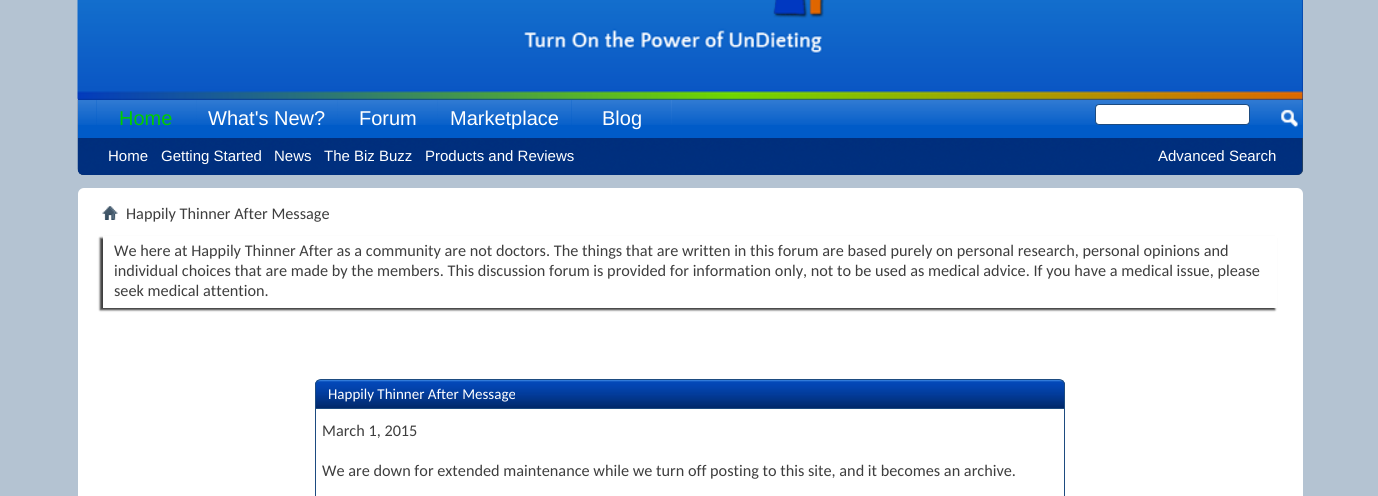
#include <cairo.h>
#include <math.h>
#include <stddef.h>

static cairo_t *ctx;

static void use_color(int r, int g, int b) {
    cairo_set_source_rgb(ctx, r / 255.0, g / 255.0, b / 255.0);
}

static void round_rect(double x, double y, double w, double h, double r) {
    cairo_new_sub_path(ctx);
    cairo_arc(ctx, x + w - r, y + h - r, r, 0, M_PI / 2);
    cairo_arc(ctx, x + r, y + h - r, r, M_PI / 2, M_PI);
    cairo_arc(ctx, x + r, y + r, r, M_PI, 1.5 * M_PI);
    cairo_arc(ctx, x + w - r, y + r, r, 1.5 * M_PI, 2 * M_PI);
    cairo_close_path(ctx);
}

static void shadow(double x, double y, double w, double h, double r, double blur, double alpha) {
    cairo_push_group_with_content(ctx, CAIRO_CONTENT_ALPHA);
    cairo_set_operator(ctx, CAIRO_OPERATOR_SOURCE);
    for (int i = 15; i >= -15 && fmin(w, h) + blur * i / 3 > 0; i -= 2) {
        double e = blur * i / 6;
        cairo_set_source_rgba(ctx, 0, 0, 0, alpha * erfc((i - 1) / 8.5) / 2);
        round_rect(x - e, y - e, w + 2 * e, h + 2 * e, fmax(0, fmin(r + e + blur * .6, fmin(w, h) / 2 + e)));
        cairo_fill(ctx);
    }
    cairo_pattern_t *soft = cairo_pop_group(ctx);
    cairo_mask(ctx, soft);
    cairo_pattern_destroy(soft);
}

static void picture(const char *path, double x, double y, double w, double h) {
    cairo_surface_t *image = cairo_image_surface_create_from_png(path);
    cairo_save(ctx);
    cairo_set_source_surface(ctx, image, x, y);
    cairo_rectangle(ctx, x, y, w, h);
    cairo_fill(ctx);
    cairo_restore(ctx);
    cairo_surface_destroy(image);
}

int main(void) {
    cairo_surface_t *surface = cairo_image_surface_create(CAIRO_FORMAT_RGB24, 1378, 496);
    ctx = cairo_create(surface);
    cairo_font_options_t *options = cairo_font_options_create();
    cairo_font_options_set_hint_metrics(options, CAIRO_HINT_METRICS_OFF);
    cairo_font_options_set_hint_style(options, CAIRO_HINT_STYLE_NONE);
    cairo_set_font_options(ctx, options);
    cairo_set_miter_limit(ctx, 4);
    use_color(180, 195, 210);
    cairo_paint(ctx);
    use_color(0, 51, 153);
    cairo_new_path(ctx);
    cairo_move_to(ctx, 78, -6);
    cairo_line_to(ctx, 1303, -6);
    cairo_line_to(ctx, 1303, 169);
    cairo_curve_to(ctx, 1303, 172.5, 1300.5, 175, 1297, 175);
    cairo_line_to(ctx, 84, 175);
    cairo_curve_to(ctx, 80.5, 175, 78, 172.5, 78, 169);
    cairo_close_path(ctx);
    cairo_fill(ctx);
    picture("img1.png", 77, 0, 1226, 100);
    use_color(47, 68, 86);
    cairo_new_path(ctx);
    cairo_move_to(ctx, 78, 100);
    cairo_line_to(ctx, 1303, 100);
    cairo_line_to(ctx, 1303, 169);
    cairo_curve_to(ctx, 1303, 172.5, 1300.5, 175, 1297, 175);
    cairo_line_to(ctx, 84, 175);
    cairo_curve_to(ctx, 80.5, 175, 78, 172.5, 78, 169);
    cairo_close_path(ctx);
    cairo_fill(ctx);
    picture("img2.png", 77, 100, 1226, 75);
    use_color(0, 91, 200);
    cairo_rectangle(ctx, 78, 100, 1225, 38);
    cairo_fill(ctx);
    picture("img3.png", 77, 100, 1226, 25);
    cairo_rectangle(ctx, 96, 100, 575, 25);
    cairo_fill(ctx);
    picture("img5.png", 196, 100, 142, 25);
    picture("img4.png", 96, 100, 101, 25);
    cairo_select_font_face(ctx, "Liberation Sans", CAIRO_FONT_SLANT_NORMAL, CAIRO_FONT_WEIGHT_NORMAL);
    cairo_set_font_size(ctx, 20);
    use_color(0, 204, 0);
    cairo_move_to(ctx, 119, 125);
    cairo_show_text(ctx, "Home");
    use_color(255, 255, 255);
    cairo_move_to(ctx, 208, 125);
    cairo_show_text(ctx, "What's New?");
    picture("img6.png", 337, 100, 101, 25);
    cairo_move_to(ctx, 359, 125);
    cairo_show_text(ctx, "Forum");
    picture("img7.png", 437, 100, 134, 25);
    cairo_move_to(ctx, 450, 125);
    cairo_show_text(ctx, "Marketplace");
    picture("img8.png", 571, 100, 101, 25);
    cairo_move_to(ctx, 602, 125);
    cairo_show_text(ctx, "Blog");
    cairo_set_font_size(ctx, 15);
    cairo_move_to(ctx, 108, 161);
    cairo_show_text(ctx, "Home");
    cairo_move_to(ctx, 161, 161);
    cairo_show_text(ctx, "Getting Started");
    cairo_move_to(ctx, 274, 161);
    cairo_show_text(ctx, "News");
    cairo_move_to(ctx, 324, 161);
    cairo_show_text(ctx, "The Biz Buzz");
    cairo_move_to(ctx, 425, 161);
    cairo_show_text(ctx, "Products and Reviews");
    round_rect(1095.5, 104.5, 154, 20, 3.5);
    cairo_fill_preserve(ctx);
    use_color(29, 75, 128);
    cairo_set_line_width(ctx, 1);
    cairo_stroke(ctx);
    picture("img9.png", 1281, 109, 17, 19);
    use_color(255, 255, 255);
    cairo_move_to(ctx, 1158, 161);
    cairo_show_text(ctx, "Advanced Search");
    round_rect(78, 188, 1225, 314, 6);
    cairo_fill(ctx);
    picture("img10.png", 102, 206, 16, 14);
    cairo_select_font_face(ctx, "Carlito", CAIRO_FONT_SLANT_NORMAL, CAIRO_FONT_WEIGHT_NORMAL);
    cairo_set_font_size(ctx, 16.25);
    use_color(62, 62, 62);
    cairo_move_to(ctx, 126, 219);
    cairo_show_text(ctx, "Happily Thinner After Message");
    use_color(62, 62, 62);
    shadow(100, 238, 1175, 72, 0, 1, 1);
    use_color(255, 255, 255);
    cairo_rectangle(ctx, 103, 236, 1174, 72);
    cairo_fill(ctx);
    use_color(62, 62, 62);
    cairo_move_to(ctx, 114, 256);
    cairo_show_text(ctx, "We here at Happily Thinner After as a community are not doctors. The things that are written in this forum are based purely on personal research, personal opinions and");
    cairo_move_to(ctx, 114, 276);
    cairo_show_text(ctx, "individual choices that are made by the members. This discussion forum is provided for information only, not to be used as medical advice. If you have a medical issue, please");
    cairo_move_to(ctx, 114, 296);
    cairo_show_text(ctx, "seek medical attention.");
    picture("img11.png", 315, 380, 750, 28);
    cairo_new_path(ctx);
    cairo_move_to(ctx, 321, 379.5);
    cairo_line_to(ctx, 1059, 379.5);
    cairo_curve_to(ctx, 1062, 379.5, 1064.5, 382, 1064.5, 385);
    cairo_line_to(ctx, 1064.5, 408.5);
    cairo_line_to(ctx, 315.5, 408.5);
    cairo_line_to(ctx, 315.5, 385);
    cairo_curve_to(ctx, 315.5, 382, 318, 379.5, 321, 379.5);
    cairo_close_path(ctx);
    use_color(29, 75, 128);
    cairo_stroke(ctx);
    cairo_set_font_size(ctx, 15);
    use_color(255, 255, 255);
    cairo_move_to(ctx, 328, 399);
    cairo_show_text(ctx, "Happily Thinner After Message");
    use_color(29, 75, 128);
    cairo_rectangle(ctx, 1064, 409, 1, 87);
    cairo_fill(ctx);
    cairo_rectangle(ctx, 315, 409, 1, 87);
    cairo_fill(ctx);
    cairo_set_font_size(ctx, 16.25);
    use_color(62, 62, 62);
    cairo_move_to(ctx, 322, 436);
    cairo_show_text(ctx, "March 1, 2015");
    cairo_move_to(ctx, 322, 476);
    cairo_show_text(ctx, "We are down for extended maintenance while we turn off posting to this site, and it becomes an archive.");
    cairo_surface_write_to_png(surface, "result.png");
    cairo_font_options_destroy(options);
    cairo_destroy(ctx);
    cairo_surface_destroy(surface);
    return 0;
}
